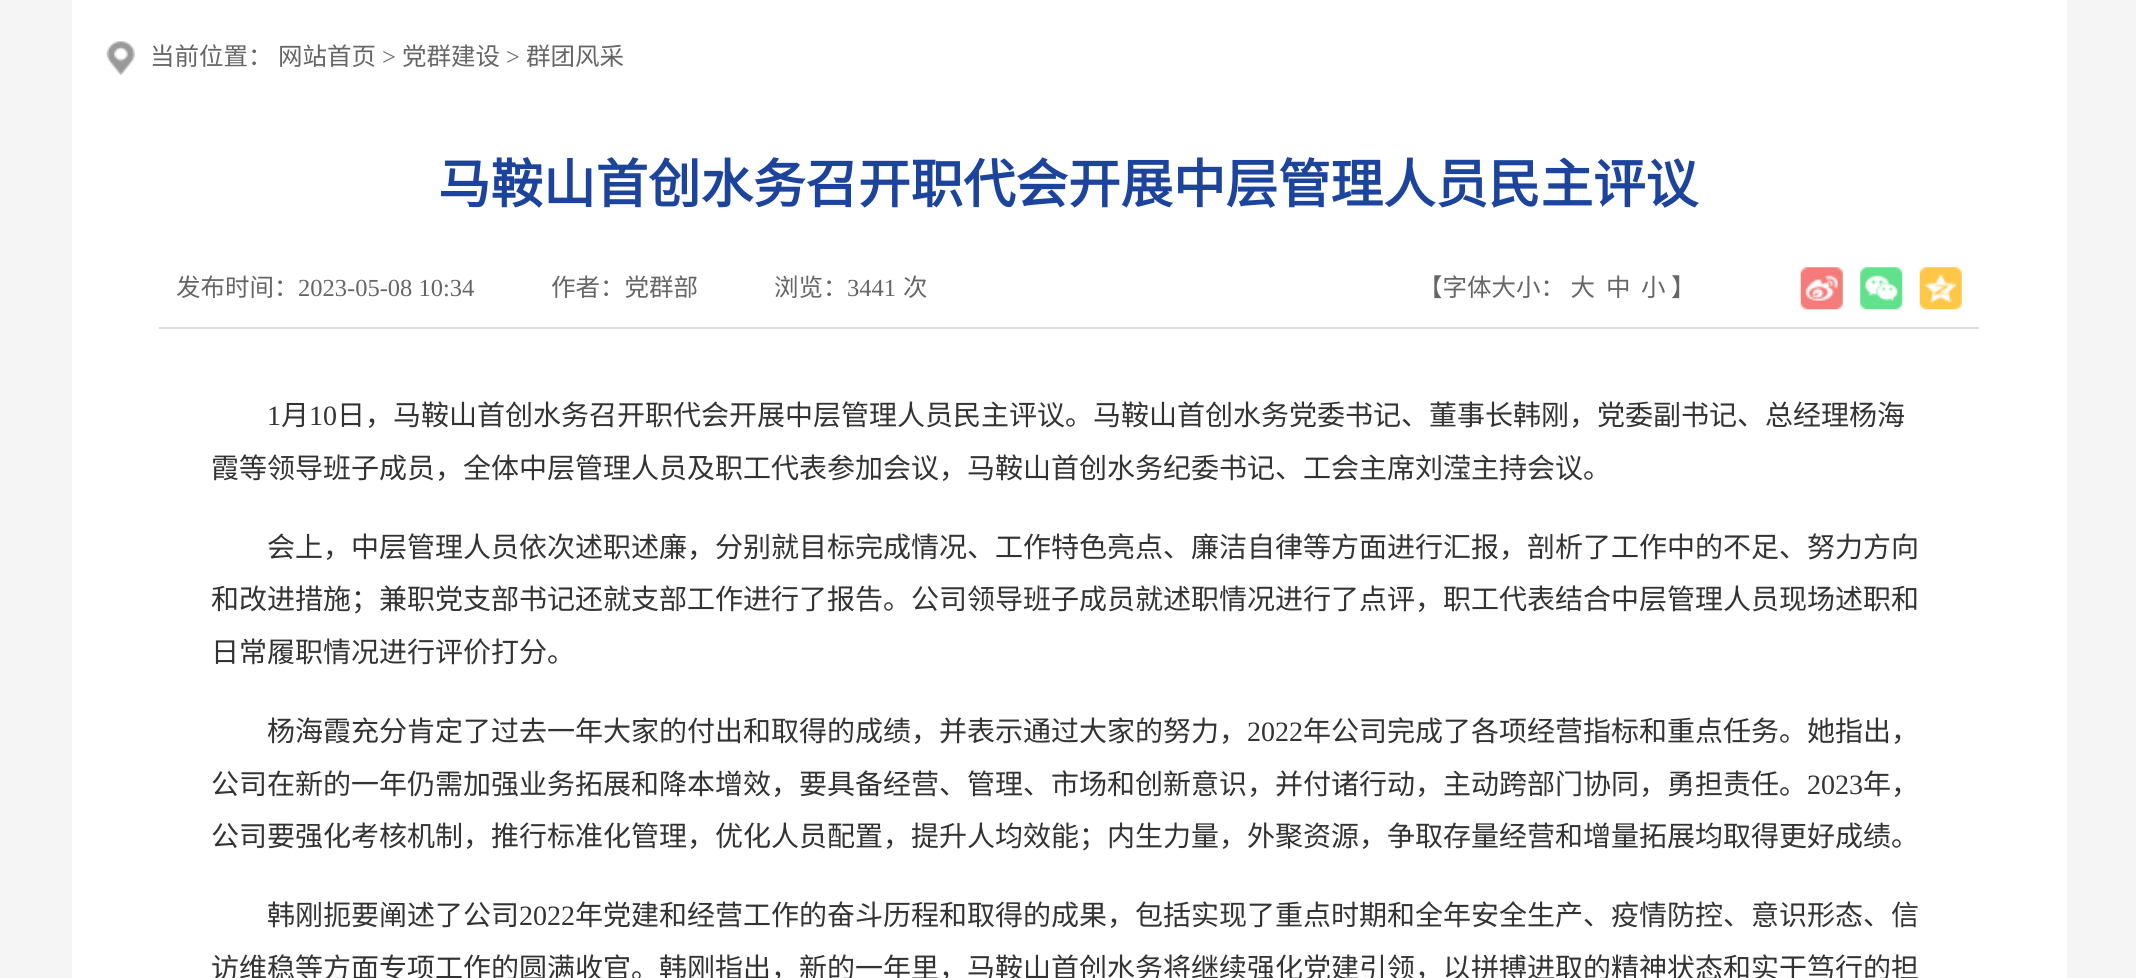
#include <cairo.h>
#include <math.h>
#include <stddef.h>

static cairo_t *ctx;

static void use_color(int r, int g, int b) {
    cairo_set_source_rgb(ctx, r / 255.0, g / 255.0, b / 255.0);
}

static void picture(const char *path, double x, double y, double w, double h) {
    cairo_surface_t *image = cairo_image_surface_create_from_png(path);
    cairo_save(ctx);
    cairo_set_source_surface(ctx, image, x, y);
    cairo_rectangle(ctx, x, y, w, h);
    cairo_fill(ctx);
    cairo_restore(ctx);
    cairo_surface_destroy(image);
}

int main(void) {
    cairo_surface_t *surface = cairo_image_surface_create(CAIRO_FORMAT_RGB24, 2136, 978);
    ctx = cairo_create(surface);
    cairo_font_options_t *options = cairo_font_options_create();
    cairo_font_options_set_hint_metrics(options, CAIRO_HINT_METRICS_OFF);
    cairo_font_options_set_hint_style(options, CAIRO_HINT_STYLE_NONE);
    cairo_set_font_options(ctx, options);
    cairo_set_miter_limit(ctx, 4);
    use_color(245, 245, 245);
    cairo_paint(ctx);
    use_color(255, 255, 255);
    cairo_rectangle(ctx, 72, 0, 1995, 978);
    cairo_fill(ctx);
    picture("img1.png", 106, 41, 29, 34);
    cairo_select_font_face(ctx, "Noto Sans CJK SC", CAIRO_FONT_SLANT_NORMAL, CAIRO_FONT_WEIGHT_NORMAL);
    cairo_set_font_size(ctx, 24.5);
    use_color(102, 102, 102);
    cairo_move_to(ctx, 150, 65);
    cairo_show_text(ctx, "当前位置：");
    cairo_move_to(ctx, 278, 65);
    cairo_show_text(ctx, "网站首页");
    cairo_select_font_face(ctx, "Liberation Serif", CAIRO_FONT_SLANT_NORMAL, CAIRO_FONT_WEIGHT_NORMAL);
    cairo_move_to(ctx, 382, 65);
    cairo_show_text(ctx, ">");
    cairo_select_font_face(ctx, "Noto Sans CJK SC", CAIRO_FONT_SLANT_NORMAL, CAIRO_FONT_WEIGHT_NORMAL);
    cairo_move_to(ctx, 402, 65);
    cairo_show_text(ctx, "党群建设");
    cairo_select_font_face(ctx, "Liberation Serif", CAIRO_FONT_SLANT_NORMAL, CAIRO_FONT_WEIGHT_NORMAL);
    cairo_move_to(ctx, 506, 65);
    cairo_show_text(ctx, ">");
    cairo_select_font_face(ctx, "Noto Sans CJK SC", CAIRO_FONT_SLANT_NORMAL, CAIRO_FONT_WEIGHT_NORMAL);
    cairo_move_to(ctx, 526, 65);
    cairo_show_text(ctx, "群团风采");
    cairo_select_font_face(ctx, "Noto Sans CJK SC", CAIRO_FONT_SLANT_NORMAL, CAIRO_FONT_WEIGHT_BOLD);
    cairo_set_font_size(ctx, 52.5);
    use_color(29, 68, 157);
    cairo_move_to(ctx, 438, 203);
    cairo_show_text(ctx, "马鞍山首创水务召开职代会开展中层管理人员民主评议");
    use_color(221, 221, 221);
    cairo_rectangle(ctx, 159, 327, 1820, 2);
    cairo_fill(ctx);
    cairo_select_font_face(ctx, "Noto Sans CJK SC", CAIRO_FONT_SLANT_NORMAL, CAIRO_FONT_WEIGHT_NORMAL);
    cairo_set_font_size(ctx, 24.5);
    use_color(102, 102, 102);
    cairo_move_to(ctx, 176, 296);
    cairo_show_text(ctx, "发布时间：");
    cairo_select_font_face(ctx, "Liberation Serif", CAIRO_FONT_SLANT_NORMAL, CAIRO_FONT_WEIGHT_NORMAL);
    cairo_move_to(ctx, 298, 296);
    cairo_show_text(ctx, "2023-05-08 10:34");
    cairo_select_font_face(ctx, "Noto Sans CJK SC", CAIRO_FONT_SLANT_NORMAL, CAIRO_FONT_WEIGHT_NORMAL);
    cairo_move_to(ctx, 551, 296);
    cairo_show_text(ctx, "作者：党群部");
    cairo_move_to(ctx, 774, 296);
    cairo_show_text(ctx, "浏览：");
    cairo_select_font_face(ctx, "Liberation Serif", CAIRO_FONT_SLANT_NORMAL, CAIRO_FONT_WEIGHT_NORMAL);
    cairo_move_to(ctx, 847, 296);
    cairo_show_text(ctx, "3441");
    cairo_select_font_face(ctx, "Noto Sans CJK SC", CAIRO_FONT_SLANT_NORMAL, CAIRO_FONT_WEIGHT_NORMAL);
    cairo_move_to(ctx, 903, 296);
    cairo_show_text(ctx, "次");
    cairo_move_to(ctx, 1418, 296);
    cairo_show_text(ctx, "【字体大小： 大");
    cairo_move_to(ctx, 1606, 296);
    cairo_show_text(ctx, "中");
    cairo_move_to(ctx, 1641, 296);
    cairo_show_text(ctx, "小 】");
    picture("img2.png", 1800, 267, 43, 43);
    picture("img3.png", 1860, 267, 43, 43);
    picture("img4.png", 1919, 267, 43, 43);
    cairo_select_font_face(ctx, "Liberation Serif", CAIRO_FONT_SLANT_NORMAL, CAIRO_FONT_WEIGHT_NORMAL);
    cairo_set_font_size(ctx, 28);
    use_color(51, 51, 51);
    cairo_move_to(ctx, 267, 425);
    cairo_show_text(ctx, "1");
    cairo_select_font_face(ctx, "Noto Sans CJK SC", CAIRO_FONT_SLANT_NORMAL, CAIRO_FONT_WEIGHT_NORMAL);
    cairo_move_to(ctx, 281, 425);
    cairo_show_text(ctx, "月");
    cairo_select_font_face(ctx, "Liberation Serif", CAIRO_FONT_SLANT_NORMAL, CAIRO_FONT_WEIGHT_NORMAL);
    cairo_move_to(ctx, 309, 425);
    cairo_show_text(ctx, "10");
    cairo_select_font_face(ctx, "Noto Sans CJK SC", CAIRO_FONT_SLANT_NORMAL, CAIRO_FONT_WEIGHT_NORMAL);
    cairo_move_to(ctx, 337, 425);
    cairo_show_text(ctx, "日，马鞍山首创水务召开职代会开展中层管理人员民主评议。马鞍山首创水务党委书记、董事长韩刚，党委副书记、总经理杨海");
    cairo_move_to(ctx, 211, 478);
    cairo_show_text(ctx, "霞等领导班子成员，全体中层管理人员及职工代表参加会议，马鞍山首创水务纪委书记、工会主席刘滢主持会议。");
    cairo_move_to(ctx, 267, 557);
    cairo_show_text(ctx, "会上，中层管理人员依次述职述廉，分别就目标完成情况、工作特色亮点、廉洁自律等方面进行汇报，剖析了工作中的不足、努力方向");
    cairo_move_to(ctx, 211, 609);
    cairo_show_text(ctx, "和改进措施；兼职党支部书记还就支部工作进行了报告。公司领导班子成员就述职情况进行了点评，职工代表结合中层管理人员现场述职和");
    cairo_move_to(ctx, 211, 662);
    cairo_show_text(ctx, "日常履职情况进行评价打分。");
    cairo_move_to(ctx, 267, 741);
    cairo_show_text(ctx, "杨海霞充分肯定了过去一年大家的付出和取得的成绩，并表示通过大家的努力，");
    cairo_select_font_face(ctx, "Liberation Serif", CAIRO_FONT_SLANT_NORMAL, CAIRO_FONT_WEIGHT_NORMAL);
    cairo_move_to(ctx, 1247, 741);
    cairo_show_text(ctx, "2022");
    cairo_select_font_face(ctx, "Noto Sans CJK SC", CAIRO_FONT_SLANT_NORMAL, CAIRO_FONT_WEIGHT_NORMAL);
    cairo_move_to(ctx, 1303, 741);
    cairo_show_text(ctx, "年公司完成了各项经营指标和重点任务。她指出，");
    cairo_move_to(ctx, 211, 794);
    cairo_show_text(ctx, "公司在新的一年仍需加强业务拓展和降本增效，要具备经营、管理、市场和创新意识，并付诸行动，主动跨部门协同，勇担责任。");
    cairo_select_font_face(ctx, "Liberation Serif", CAIRO_FONT_SLANT_NORMAL, CAIRO_FONT_WEIGHT_NORMAL);
    cairo_move_to(ctx, 1807, 794);
    cairo_show_text(ctx, "2023");
    cairo_select_font_face(ctx, "Noto Sans CJK SC", CAIRO_FONT_SLANT_NORMAL, CAIRO_FONT_WEIGHT_NORMAL);
    cairo_move_to(ctx, 1863, 794);
    cairo_show_text(ctx, "年，");
    cairo_move_to(ctx, 211, 846);
    cairo_show_text(ctx, "公司要强化考核机制，推行标准化管理，优化人员配置，提升人均效能；内生力量，外聚资源，争取存量经营和增量拓展均取得更好成绩。");
    cairo_move_to(ctx, 267, 925);
    cairo_show_text(ctx, "韩刚扼要阐述了公司");
    cairo_select_font_face(ctx, "Liberation Serif", CAIRO_FONT_SLANT_NORMAL, CAIRO_FONT_WEIGHT_NORMAL);
    cairo_move_to(ctx, 519, 925);
    cairo_show_text(ctx, "2022");
    cairo_select_font_face(ctx, "Noto Sans CJK SC", CAIRO_FONT_SLANT_NORMAL, CAIRO_FONT_WEIGHT_NORMAL);
    cairo_move_to(ctx, 575, 925);
    cairo_show_text(ctx, "年党建和经营工作的奋斗历程和取得的成果，包括实现了重点时期和全年安全生产、疫情防控、意识形态、信");
    cairo_move_to(ctx, 211, 978);
    cairo_show_text(ctx, "访维稳等方面专项工作的圆满收官。韩刚指出，新的一年里，马鞍山首创水务将继续强化党建引领，以拼搏进取的精神状态和实干笃行的担");
    cairo_surface_write_to_png(surface, "result.png");
    cairo_font_options_destroy(options);
    cairo_destroy(ctx);
    cairo_surface_destroy(surface);
    return 0;
}
